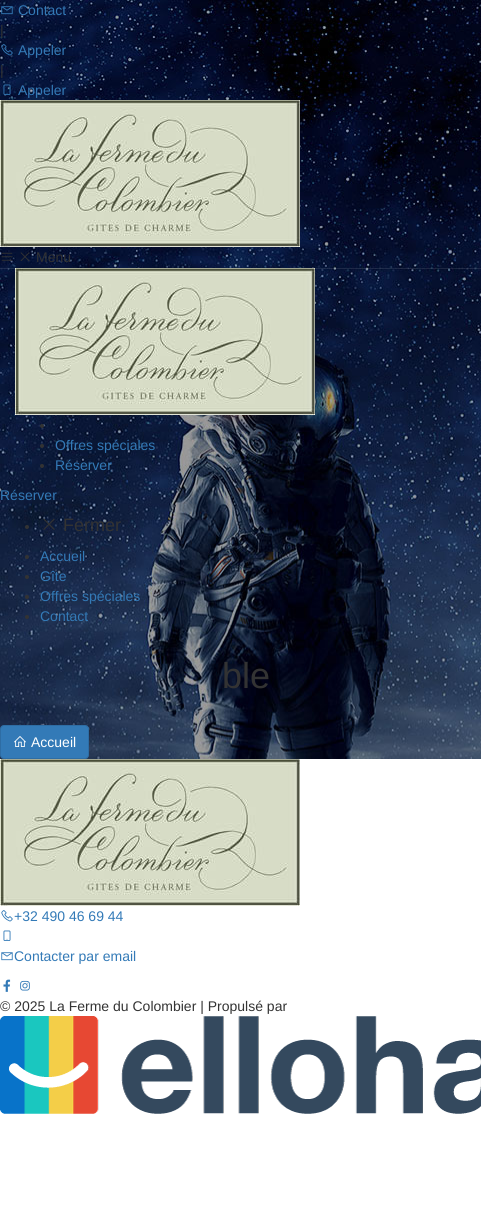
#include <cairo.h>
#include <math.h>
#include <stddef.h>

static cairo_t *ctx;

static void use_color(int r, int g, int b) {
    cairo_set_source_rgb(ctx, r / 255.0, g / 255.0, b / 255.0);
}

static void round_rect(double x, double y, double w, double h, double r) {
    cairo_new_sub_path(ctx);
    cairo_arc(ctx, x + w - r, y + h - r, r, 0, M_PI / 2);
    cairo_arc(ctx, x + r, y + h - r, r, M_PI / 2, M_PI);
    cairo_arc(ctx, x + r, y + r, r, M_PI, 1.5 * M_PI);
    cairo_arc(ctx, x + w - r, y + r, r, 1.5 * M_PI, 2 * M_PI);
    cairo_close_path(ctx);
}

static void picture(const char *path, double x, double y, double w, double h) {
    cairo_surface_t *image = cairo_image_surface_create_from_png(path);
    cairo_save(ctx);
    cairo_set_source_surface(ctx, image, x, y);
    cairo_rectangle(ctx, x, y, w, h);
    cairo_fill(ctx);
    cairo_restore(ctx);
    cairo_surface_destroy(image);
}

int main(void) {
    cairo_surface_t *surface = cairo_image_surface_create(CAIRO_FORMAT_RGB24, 481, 1225);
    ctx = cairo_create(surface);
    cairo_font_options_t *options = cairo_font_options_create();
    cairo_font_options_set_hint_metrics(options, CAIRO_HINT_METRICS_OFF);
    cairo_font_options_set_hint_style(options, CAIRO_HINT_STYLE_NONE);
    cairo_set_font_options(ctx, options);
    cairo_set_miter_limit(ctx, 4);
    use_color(255, 255, 255);
    cairo_paint(ctx);
    picture("img1.png", 0, 0, 481, 759);
    picture("img2.png", 1, 6, 12, 9);
    cairo_select_font_face(ctx, "Liberation Sans", CAIRO_FONT_SLANT_NORMAL, CAIRO_FONT_WEIGHT_NORMAL);
    cairo_set_font_size(ctx, 14);
    use_color(51, 122, 183);
    cairo_move_to(ctx, 18, 15);
    cairo_show_text(ctx, "Contact");
    use_color(51, 51, 51);
    cairo_move_to(ctx, 0, 35);
    cairo_show_text(ctx, "|");
    picture("img3.png", 1, 44, 12, 12);
    use_color(51, 122, 183);
    cairo_move_to(ctx, 18, 55);
    cairo_show_text(ctx, "Appeler");
    use_color(51, 51, 51);
    cairo_move_to(ctx, 0, 75);
    cairo_show_text(ctx, "|");
    picture("img4.png", 3, 84, 8, 11);
    use_color(51, 122, 183);
    cairo_move_to(ctx, 18, 95);
    cairo_show_text(ctx, "Appeler");
    picture("img5.png", 0, 100, 300, 147);
    picture("img6.png", 1, 252, 12, 9);
    picture("img7.png", 20, 252, 10, 9);
    use_color(51, 51, 51);
    cairo_move_to(ctx, 36, 262);
    cairo_show_text(ctx, "Menu");
    cairo_set_source_rgba(ctx, 1, 1, 1, 0.1);
    cairo_rectangle(ctx, 0, 268, 481, 1);
    cairo_fill(ctx);
    picture("img5.png", 15, 268, 300, 147);
    use_color(51, 51, 51);
    cairo_arc(ctx, 42, 426, 2, 0, 2 * M_PI);
    cairo_fill(ctx);
    cairo_arc(ctx, 42, 446, 2, 0, 2 * M_PI);
    cairo_fill(ctx);
    use_color(51, 122, 183);
    cairo_move_to(ctx, 55, 450);
    cairo_show_text(ctx, "Offres spéciales");
    use_color(51, 51, 51);
    cairo_new_path(ctx);
    cairo_arc(ctx, 42, 466, 2, 0, 2 * M_PI);
    cairo_fill(ctx);
    use_color(51, 122, 183);
    cairo_move_to(ctx, 55, 470);
    cairo_show_text(ctx, "Réserver");
    cairo_move_to(ctx, 0, 500);
    cairo_show_text(ctx, "Réserver");
    use_color(51, 51, 51);
    cairo_new_path(ctx);
    cairo_arc(ctx, 27, 527, 2, 0, 2 * M_PI);
    cairo_fill(ctx);
    picture("img8.png", 43, 518, 12, 12);
    cairo_set_font_size(ctx, 18);
    cairo_move_to(ctx, 63, 531);
    cairo_show_text(ctx, "Fermer");
    cairo_new_path(ctx);
    cairo_arc(ctx, 27, 557, 2, 0, 2 * M_PI);
    cairo_fill(ctx);
    cairo_set_font_size(ctx, 14);
    use_color(51, 122, 183);
    cairo_move_to(ctx, 40, 561);
    cairo_show_text(ctx, "Accueil");
    use_color(51, 51, 51);
    cairo_new_path(ctx);
    cairo_arc(ctx, 27, 577, 2, 0, 2 * M_PI);
    cairo_fill(ctx);
    use_color(51, 122, 183);
    cairo_move_to(ctx, 40, 581);
    cairo_show_text(ctx, "Gîte");
    use_color(51, 51, 51);
    cairo_new_path(ctx);
    cairo_arc(ctx, 27, 597, 2, 0, 2 * M_PI);
    cairo_fill(ctx);
    use_color(51, 122, 183);
    cairo_move_to(ctx, 40, 601);
    cairo_show_text(ctx, "Offres spéciales");
    use_color(51, 51, 51);
    cairo_new_path(ctx);
    cairo_arc(ctx, 27, 617, 2, 0, 2 * M_PI);
    cairo_fill(ctx);
    use_color(51, 122, 183);
    cairo_move_to(ctx, 40, 621);
    cairo_show_text(ctx, "Contact");
    cairo_set_font_size(ctx, 36);
    use_color(51, 51, 51);
    cairo_move_to(ctx, 222, 688);
    cairo_show_text(ctx, "ble");
    use_color(51, 122, 183);
    round_rect(0.5, 725.5, 88, 33, 3.5);
    cairo_fill_preserve(ctx);
    use_color(46, 109, 164);
    cairo_set_line_width(ctx, 1);
    cairo_stroke(ctx);
    picture("img9.png", 14, 736, 12, 11);
    cairo_set_font_size(ctx, 14);
    use_color(255, 255, 255);
    cairo_move_to(ctx, 31, 747);
    cairo_show_text(ctx, "Accueil");
    picture("img5.png", 0, 759, 300, 147);
    picture("img10.png", 1, 910, 12, 12);
    use_color(51, 122, 183);
    cairo_move_to(ctx, 14, 921);
    cairo_show_text(ctx, "+32 490 46 69 44");
    picture("img11.png", 3, 930, 8, 11);
    picture("img12.png", 1, 952, 12, 9);
    cairo_move_to(ctx, 14, 961);
    cairo_show_text(ctx, "Contacter par email");
    picture("img13.png", 3, 979, 8, 13);
    picture("img14.png", 20, 980, 10, 11);
    use_color(51, 51, 51);
    cairo_move_to(ctx, 0, 1011);
    cairo_show_text(ctx, "© 2025 La Ferme du Colombier | Propulsé par");
    picture("img15.png", 0, 1016, 481, 98);
    cairo_surface_write_to_png(surface, "result.png");
    cairo_font_options_destroy(options);
    cairo_destroy(ctx);
    cairo_surface_destroy(surface);
    return 0;
}
